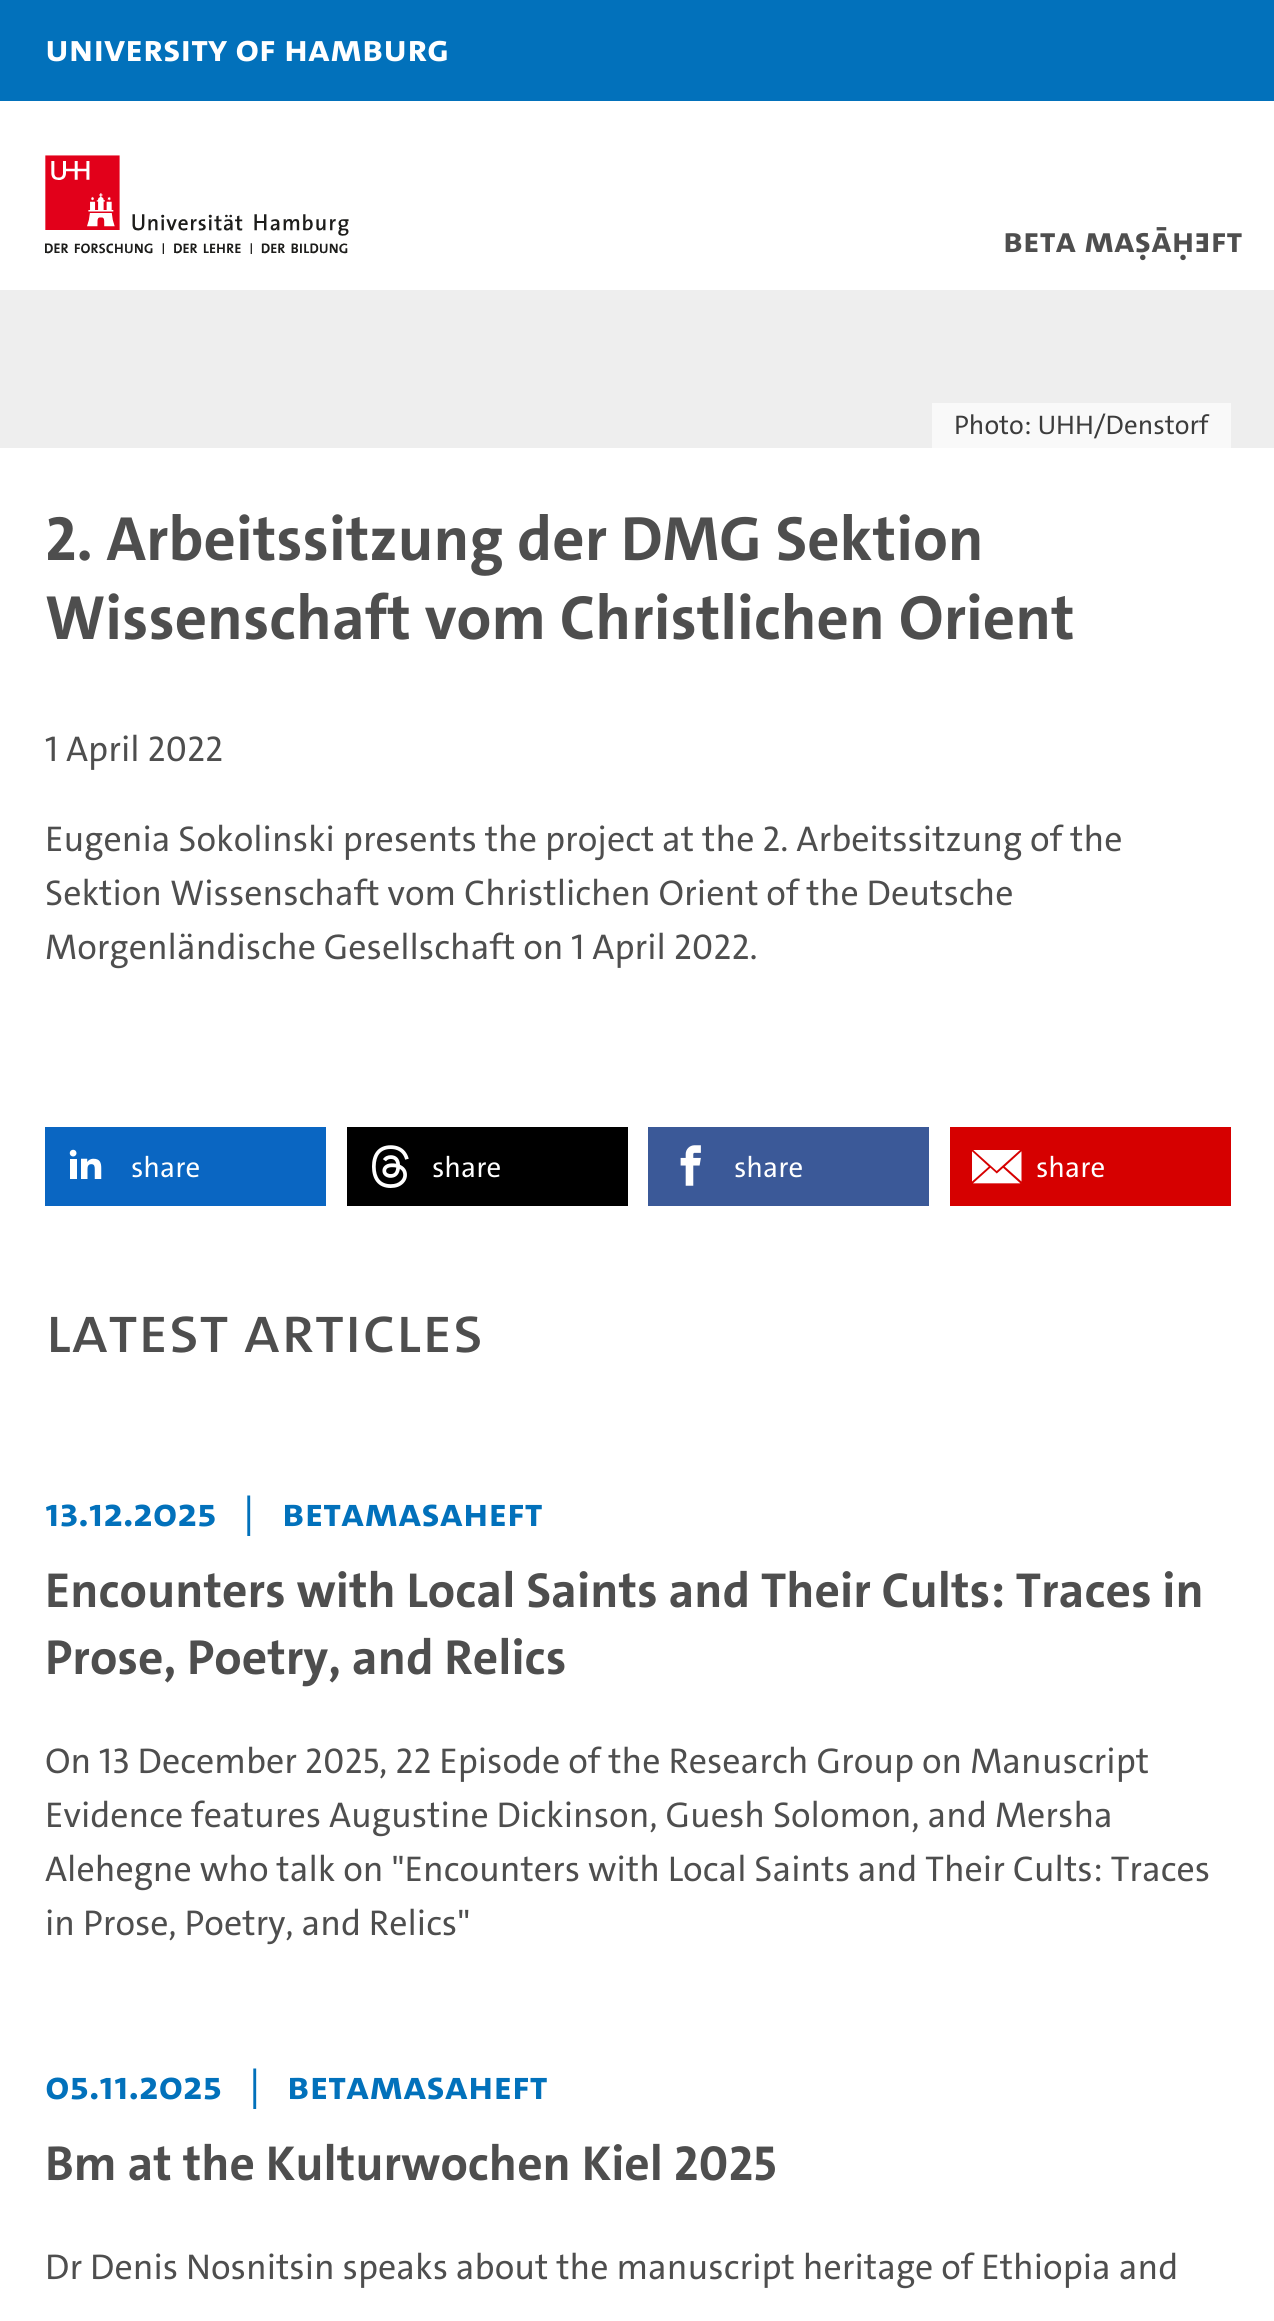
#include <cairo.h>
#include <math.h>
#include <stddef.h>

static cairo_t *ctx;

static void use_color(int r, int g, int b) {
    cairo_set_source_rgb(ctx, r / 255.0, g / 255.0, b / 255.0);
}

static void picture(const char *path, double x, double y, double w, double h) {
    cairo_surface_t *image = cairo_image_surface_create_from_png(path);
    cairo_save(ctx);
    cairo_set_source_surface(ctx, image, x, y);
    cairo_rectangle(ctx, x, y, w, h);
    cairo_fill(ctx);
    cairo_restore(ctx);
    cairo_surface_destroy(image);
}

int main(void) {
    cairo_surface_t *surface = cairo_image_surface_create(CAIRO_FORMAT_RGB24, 1274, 2321);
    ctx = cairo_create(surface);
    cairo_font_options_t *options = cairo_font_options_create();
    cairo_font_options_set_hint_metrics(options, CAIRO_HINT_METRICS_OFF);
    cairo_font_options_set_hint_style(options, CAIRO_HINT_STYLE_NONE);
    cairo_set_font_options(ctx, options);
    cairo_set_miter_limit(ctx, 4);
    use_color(255, 255, 255);
    cairo_paint(ctx);
    use_color(2, 113, 187);
    cairo_rectangle(ctx, 0, 0, 1274, 101);
    cairo_fill(ctx);
    cairo_select_font_face(ctx, "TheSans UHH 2", CAIRO_FONT_SLANT_NORMAL, CAIRO_FONT_WEIGHT_BOLD);
    cairo_set_font_size(ctx, 38.25);
    use_color(255, 255, 255);
    cairo_move_to(ctx, 45, 61);
    cairo_show_text(ctx, "University of Hamburg");
    picture("img1.png", 45, 155, 304, 99);
    cairo_set_font_size(ctx, 36);
    use_color(78, 78, 78);
    cairo_move_to(ctx, 1003, 252);
    cairo_show_text(ctx, "Beta maṣāḥǝft");
    use_color(238, 238, 238);
    cairo_rectangle(ctx, 0, 290, 1274, 158);
    cairo_fill(ctx);
    use_color(249, 249, 249);
    cairo_rectangle(ctx, 932, 403, 299, 45);
    cairo_fill(ctx);
    cairo_select_font_face(ctx, "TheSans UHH", CAIRO_FONT_SLANT_NORMAL, CAIRO_FONT_WEIGHT_NORMAL);
    cairo_set_font_size(ctx, 27);
    use_color(60, 60, 60);
    cairo_move_to(ctx, 954, 434);
    cairo_show_text(ctx, "Photo: UHH/Denstorf");
    cairo_select_font_face(ctx, "TheSans UHH", CAIRO_FONT_SLANT_NORMAL, CAIRO_FONT_WEIGHT_BOLD);
    cairo_set_font_size(ctx, 63);
    use_color(78, 78, 78);
    cairo_move_to(ctx, 45, 560);
    cairo_show_text(ctx, "2. Arbeitssitzung der DMG Sektion");
    cairo_move_to(ctx, 45, 639);
    cairo_show_text(ctx, "Wissenschaft vom Christlichen Orient");
    cairo_select_font_face(ctx, "TheSans UHH", CAIRO_FONT_SLANT_NORMAL, CAIRO_FONT_WEIGHT_NORMAL);
    cairo_set_font_size(ctx, 36);
    cairo_move_to(ctx, 45, 761);
    cairo_show_text(ctx, "1 April 2022");
    cairo_move_to(ctx, 45, 851);
    cairo_show_text(ctx, "Eugenia Sokolinski presents the project at the 2. Arbeitssitzung of the");
    cairo_move_to(ctx, 45, 905);
    cairo_show_text(ctx, "Sektion Wissenschaft vom Christlichen Orient of the Deutsche");
    cairo_move_to(ctx, 45, 959);
    cairo_show_text(ctx, "Morgenländische Gesellschaft on 1 April 2022.");
    use_color(10, 102, 194);
    cairo_rectangle(ctx, 45, 1127, 281, 79);
    cairo_fill(ctx);
    picture("img2.png", 69, 1149, 33, 30);
    cairo_set_font_size(ctx, 29);
    use_color(255, 255, 255);
    cairo_move_to(ctx, 131, 1177);
    cairo_show_text(ctx, "share");
    use_color(0, 0, 0);
    cairo_rectangle(ctx, 347, 1127, 281, 79);
    cairo_fill(ctx);
    picture("img3.png", 372, 1145, 37, 43);
    use_color(255, 255, 255);
    cairo_move_to(ctx, 432, 1177);
    cairo_show_text(ctx, "share");
    use_color(59, 89, 152);
    cairo_rectangle(ctx, 648, 1127, 281, 79);
    cairo_fill(ctx);
    picture("img4.png", 680, 1145, 21, 41);
    use_color(255, 255, 255);
    cairo_move_to(ctx, 734, 1177);
    cairo_show_text(ctx, "share");
    use_color(214, 0, 0);
    cairo_rectangle(ctx, 950, 1127, 281, 79);
    cairo_fill(ctx);
    picture("img5.png", 972, 1150, 50, 34);
    use_color(255, 255, 255);
    cairo_move_to(ctx, 1036, 1177);
    cairo_show_text(ctx, "share");
    cairo_select_font_face(ctx, "TheSans UHH 2", CAIRO_FONT_SLANT_NORMAL, CAIRO_FONT_WEIGHT_NORMAL);
    cairo_set_font_size(ctx, 67.5);
    use_color(78, 78, 78);
    cairo_move_to(ctx, 45, 1352);
    cairo_show_text(ctx, "Latest articles");
    cairo_select_font_face(ctx, "TheSans UHH 2", CAIRO_FONT_SLANT_NORMAL, CAIRO_FONT_WEIGHT_BOLD);
    cairo_set_font_size(ctx, 40.5);
    use_color(2, 113, 187);
    cairo_move_to(ctx, 45, 1526);
    cairo_show_text(ctx, "13.12.2025");
    cairo_select_font_face(ctx, "TheSans UHH 2", CAIRO_FONT_SLANT_NORMAL, CAIRO_FONT_WEIGHT_NORMAL);
    cairo_move_to(ctx, 243, 1526);
    cairo_show_text(ctx, "|");
    cairo_select_font_face(ctx, "TheSans UHH 2", CAIRO_FONT_SLANT_NORMAL, CAIRO_FONT_WEIGHT_BOLD);
    cairo_move_to(ctx, 282, 1526);
    cairo_show_text(ctx, "betamasaheft");
    cairo_select_font_face(ctx, "TheSans UHH", CAIRO_FONT_SLANT_NORMAL, CAIRO_FONT_WEIGHT_BOLD);
    cairo_set_font_size(ctx, 49.5);
    use_color(78, 78, 78);
    cairo_move_to(ctx, 45, 1607);
    cairo_show_text(ctx, "Encounters with Local Saints and Their Cults: Traces in");
    cairo_move_to(ctx, 45, 1674);
    cairo_show_text(ctx, "Prose, Poetry, and Relics");
    cairo_select_font_face(ctx, "TheSans UHH", CAIRO_FONT_SLANT_NORMAL, CAIRO_FONT_WEIGHT_NORMAL);
    cairo_set_font_size(ctx, 36);
    cairo_move_to(ctx, 45, 1773);
    cairo_show_text(ctx, "On 13 December 2025, 22 Episode of the Research Group on Manuscript");
    cairo_move_to(ctx, 45, 1827);
    cairo_show_text(ctx, "Evidence features Augustine Dickinson, Guesh Solomon, and Mersha");
    cairo_move_to(ctx, 45, 1881);
    cairo_show_text(ctx, "Alehegne who talk on \"Encounters with Local Saints and Their Cults: Traces");
    cairo_move_to(ctx, 45, 1935);
    cairo_show_text(ctx, "in Prose, Poetry, and Relics\"");
    cairo_select_font_face(ctx, "TheSans UHH 2", CAIRO_FONT_SLANT_NORMAL, CAIRO_FONT_WEIGHT_BOLD);
    cairo_set_font_size(ctx, 40.5);
    use_color(2, 113, 187);
    cairo_move_to(ctx, 45, 2099);
    cairo_show_text(ctx, "05.11.2025");
    cairo_select_font_face(ctx, "TheSans UHH 2", CAIRO_FONT_SLANT_NORMAL, CAIRO_FONT_WEIGHT_NORMAL);
    cairo_move_to(ctx, 249, 2099);
    cairo_show_text(ctx, "|");
    cairo_select_font_face(ctx, "TheSans UHH 2", CAIRO_FONT_SLANT_NORMAL, CAIRO_FONT_WEIGHT_BOLD);
    cairo_move_to(ctx, 287, 2099);
    cairo_show_text(ctx, "betamasaheft");
    cairo_select_font_face(ctx, "TheSans UHH", CAIRO_FONT_SLANT_NORMAL, CAIRO_FONT_WEIGHT_BOLD);
    cairo_set_font_size(ctx, 49.5);
    use_color(78, 78, 78);
    cairo_move_to(ctx, 45, 2180);
    cairo_show_text(ctx, "Bm at the Kulturwochen Kiel 2025");
    cairo_select_font_face(ctx, "TheSans UHH", CAIRO_FONT_SLANT_NORMAL, CAIRO_FONT_WEIGHT_NORMAL);
    cairo_set_font_size(ctx, 36);
    cairo_move_to(ctx, 45, 2279);
    cairo_show_text(ctx, "Dr Denis Nosnitsin speaks about the manuscript heritage of Ethiopia and");
    cairo_surface_write_to_png(surface, "result.png");
    cairo_font_options_destroy(options);
    cairo_destroy(ctx);
    cairo_surface_destroy(surface);
    return 0;
}
